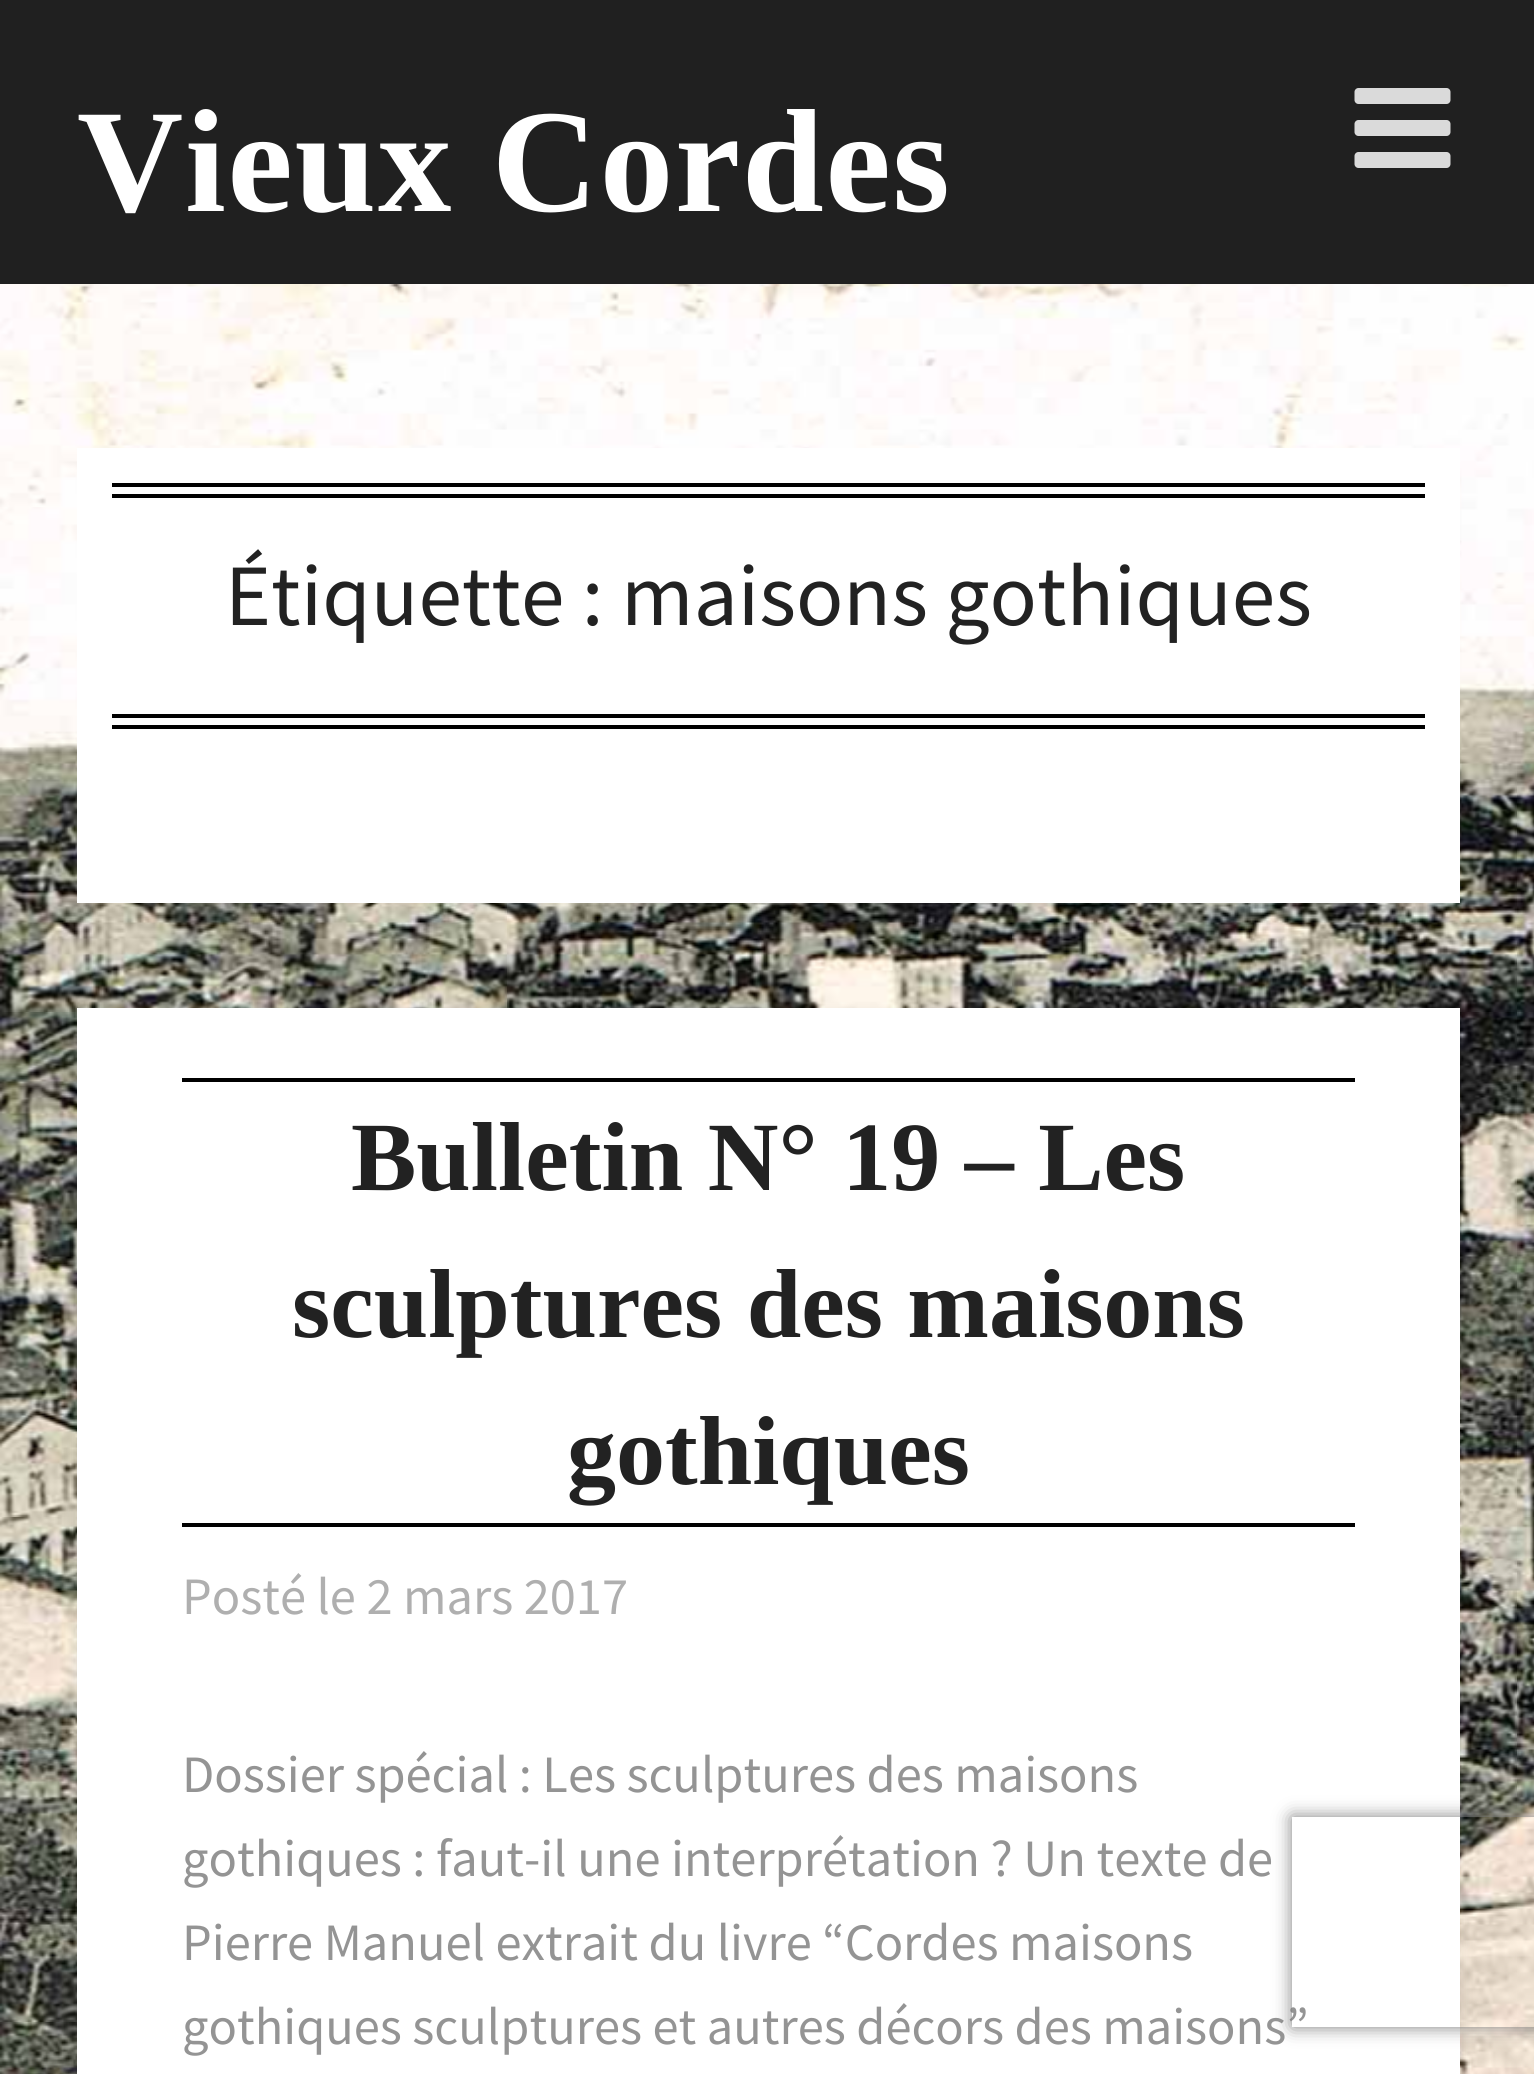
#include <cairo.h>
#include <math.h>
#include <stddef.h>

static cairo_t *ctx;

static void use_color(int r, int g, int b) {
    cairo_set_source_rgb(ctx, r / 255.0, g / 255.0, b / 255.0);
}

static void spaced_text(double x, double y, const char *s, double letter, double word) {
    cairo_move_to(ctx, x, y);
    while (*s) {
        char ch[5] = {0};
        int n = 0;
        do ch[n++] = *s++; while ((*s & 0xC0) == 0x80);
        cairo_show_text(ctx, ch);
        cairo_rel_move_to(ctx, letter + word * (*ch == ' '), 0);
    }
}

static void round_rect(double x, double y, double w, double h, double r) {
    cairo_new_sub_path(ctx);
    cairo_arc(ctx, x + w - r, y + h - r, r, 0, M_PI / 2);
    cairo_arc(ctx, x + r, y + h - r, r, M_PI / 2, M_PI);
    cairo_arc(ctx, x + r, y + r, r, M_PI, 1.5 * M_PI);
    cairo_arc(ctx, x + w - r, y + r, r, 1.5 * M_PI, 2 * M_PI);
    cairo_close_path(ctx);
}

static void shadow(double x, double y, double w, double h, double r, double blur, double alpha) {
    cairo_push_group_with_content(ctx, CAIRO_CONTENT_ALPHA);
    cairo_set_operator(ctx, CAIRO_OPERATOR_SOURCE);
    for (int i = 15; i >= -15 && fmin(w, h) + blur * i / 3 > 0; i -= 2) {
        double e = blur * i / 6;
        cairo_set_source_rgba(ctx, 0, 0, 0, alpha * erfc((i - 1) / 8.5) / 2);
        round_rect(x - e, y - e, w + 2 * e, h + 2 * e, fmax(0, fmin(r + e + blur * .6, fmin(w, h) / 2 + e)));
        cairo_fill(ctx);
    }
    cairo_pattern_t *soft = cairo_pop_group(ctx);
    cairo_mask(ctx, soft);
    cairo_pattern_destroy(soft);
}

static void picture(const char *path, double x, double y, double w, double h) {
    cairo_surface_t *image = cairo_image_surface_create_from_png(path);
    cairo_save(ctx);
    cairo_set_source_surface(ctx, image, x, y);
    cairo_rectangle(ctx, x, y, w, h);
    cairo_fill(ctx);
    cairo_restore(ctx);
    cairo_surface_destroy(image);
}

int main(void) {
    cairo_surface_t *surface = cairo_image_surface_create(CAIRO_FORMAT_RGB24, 1534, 2074);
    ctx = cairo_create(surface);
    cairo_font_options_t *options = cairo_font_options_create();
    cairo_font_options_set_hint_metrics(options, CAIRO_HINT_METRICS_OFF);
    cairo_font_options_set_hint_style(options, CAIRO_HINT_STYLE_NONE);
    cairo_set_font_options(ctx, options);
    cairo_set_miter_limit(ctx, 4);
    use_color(255, 255, 255);
    cairo_paint(ctx);
    picture("img1.png", 0, 284, 1534, 1790);
    use_color(32, 32, 32);
    cairo_rectangle(ctx, 0, 0, 1534, 284);
    cairo_fill(ctx);
    cairo_select_font_face(ctx, "Liberation Serif", CAIRO_FONT_SLANT_NORMAL, CAIRO_FONT_WEIGHT_BOLD);
    cairo_set_font_size(ctx, 147);
    use_color(255, 255, 255);
    spaced_text(77, 211, "Vieux Cordes", 1.75, 0);
    picture("img2.png", 1354, 88, 97, 80);
    cairo_rectangle(ctx, 77, 448, 1383, 455);
    cairo_fill(ctx);
    use_color(0, 0, 0);
    cairo_rectangle(ctx, 112, 483, 1313, 4);
    cairo_fill(ctx);
    cairo_rectangle(ctx, 112, 494, 1313, 4);
    cairo_fill(ctx);
    cairo_rectangle(ctx, 112, 714, 1313, 4);
    cairo_fill(ctx);
    cairo_rectangle(ctx, 112, 725, 1313, 4);
    cairo_fill(ctx);
    cairo_select_font_face(ctx, "Source Sans Pro", CAIRO_FONT_SLANT_NORMAL, CAIRO_FONT_WEIGHT_NORMAL);
    cairo_set_font_size(ctx, 87.5);
    use_color(34, 34, 34);
    cairo_move_to(ctx, 225, 625);
    cairo_show_text(ctx, "Étiquette : maisons gothiques");
    use_color(0, 0, 0);
    shadow(77, 1015, 1383, 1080, 0, 7, 0.1);
    use_color(255, 255, 255);
    cairo_rectangle(ctx, 77, 1008, 1383, 1066);
    cairo_fill(ctx);
    use_color(0, 0, 0);
    cairo_rectangle(ctx, 182, 1078, 1173, 4);
    cairo_fill(ctx);
    cairo_rectangle(ctx, 182, 1523, 1173, 4);
    cairo_fill(ctx);
    cairo_select_font_face(ctx, "Liberation Serif", CAIRO_FONT_SLANT_NORMAL, CAIRO_FONT_WEIGHT_BOLD);
    cairo_set_font_size(ctx, 98);
    use_color(34, 34, 34);
    cairo_move_to(ctx, 351, 1190);
    cairo_show_text(ctx, "Bulletin N° 19 – Les");
    cairo_move_to(ctx, 292, 1337);
    cairo_show_text(ctx, "sculptures des maisons");
    cairo_move_to(ctx, 567, 1484);
    cairo_show_text(ctx, "gothiques");
    cairo_select_font_face(ctx, "Source Sans Pro", CAIRO_FONT_SLANT_NORMAL, CAIRO_FONT_WEIGHT_NORMAL);
    cairo_set_font_size(ctx, 52.5);
    use_color(175, 175, 175);
    cairo_move_to(ctx, 182, 1614);
    cairo_show_text(ctx, "Posté le 2 mars 2017");
    use_color(148, 148, 148);
    cairo_move_to(ctx, 182, 1792);
    cairo_show_text(ctx, "Dossier spécial : Les sculptures des maisons");
    cairo_move_to(ctx, 182, 1876);
    cairo_show_text(ctx, "gothiques : faut-il une interprétation ? Un texte de");
    cairo_move_to(ctx, 182, 1960);
    cairo_show_text(ctx, "Pierre Manuel extrait du livre “Cordes maisons");
    cairo_move_to(ctx, 182, 2044);
    cairo_show_text(ctx, "gothiques sculptures et autres décors des maisons”");
    cairo_save(ctx);
    cairo_set_fill_rule(ctx, CAIRO_FILL_RULE_EVEN_ODD);
    cairo_new_path(ctx);
    cairo_move_to(ctx, 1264, 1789);
    cairo_line_to(ctx, 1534, 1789);
    cairo_line_to(ctx, 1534, 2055);
    cairo_line_to(ctx, 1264, 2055);
    cairo_close_path(ctx);
    cairo_move_to(ctx, 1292, 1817);
    cairo_line_to(ctx, 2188, 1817);
    cairo_line_to(ctx, 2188, 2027);
    cairo_line_to(ctx, 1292, 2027);
    cairo_close_path(ctx);
    cairo_clip(ctx);
    use_color(128, 128, 128);
    shadow(1292, 1817, 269, 210, 0, 9, 1);
    cairo_restore(ctx);
    cairo_surface_write_to_png(surface, "result.png");
    cairo_font_options_destroy(options);
    cairo_destroy(ctx);
    cairo_surface_destroy(surface);
    return 0;
}
